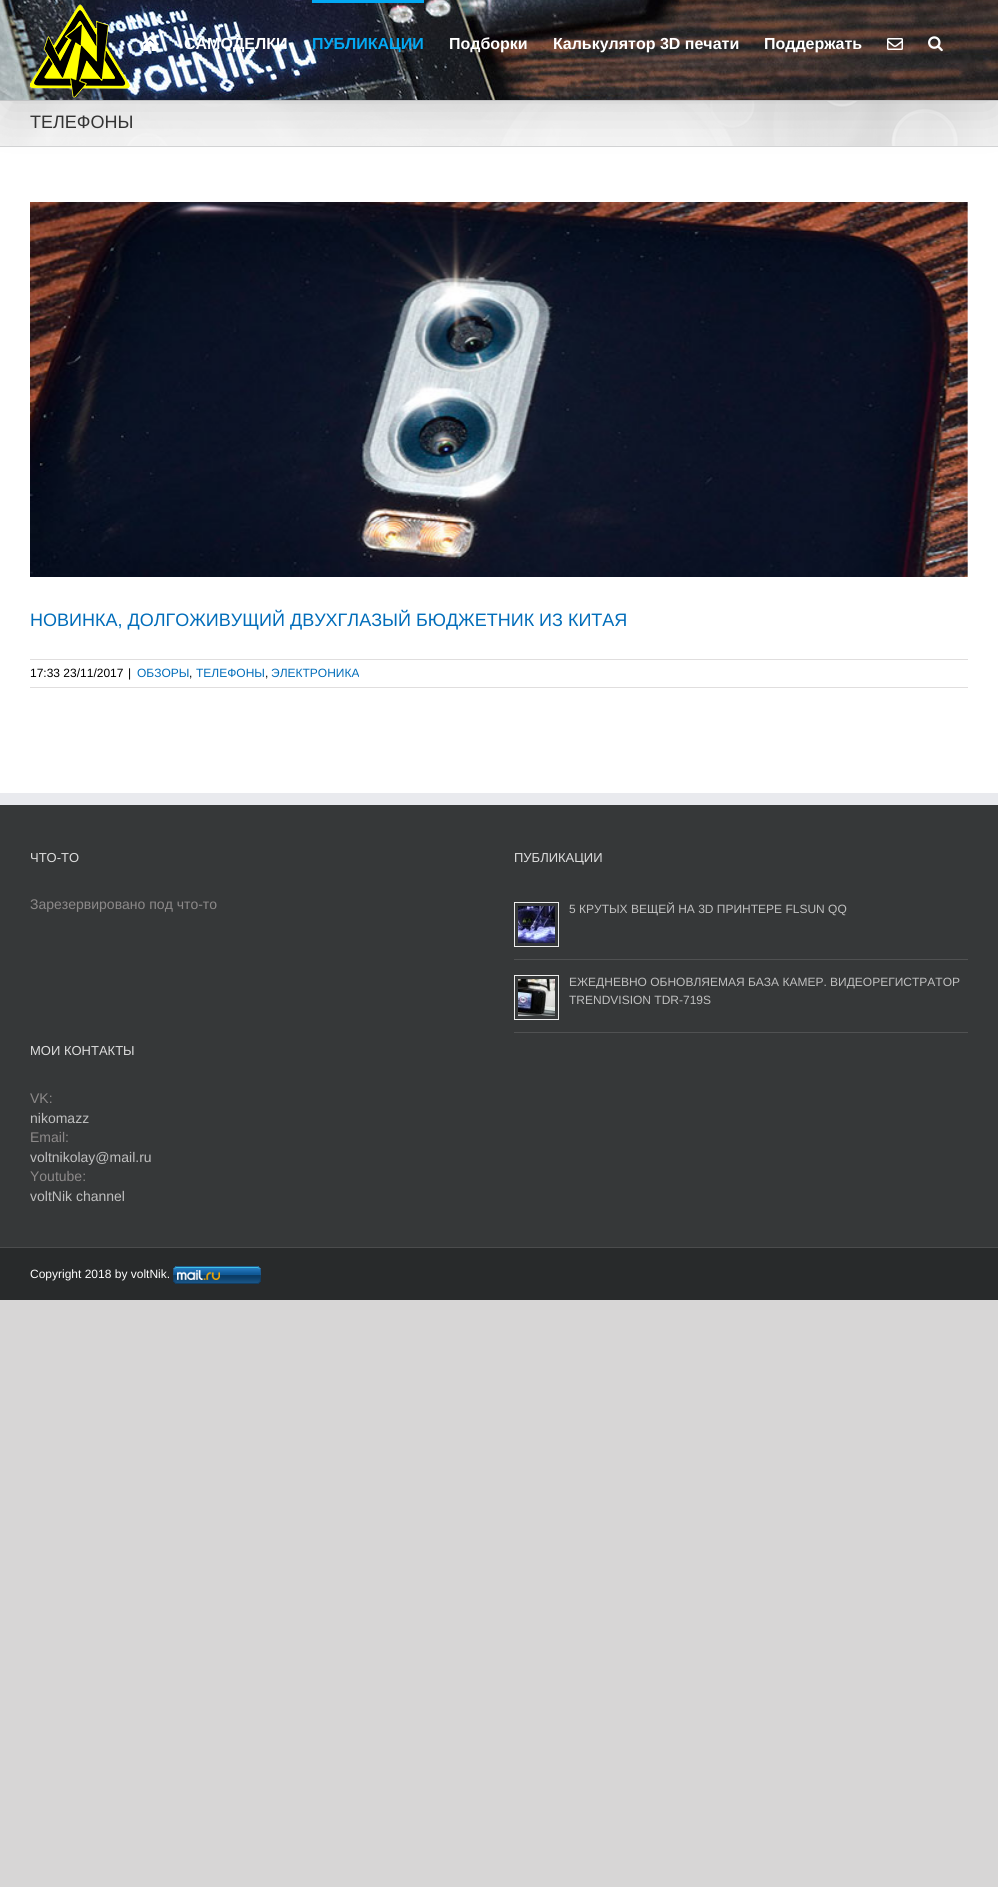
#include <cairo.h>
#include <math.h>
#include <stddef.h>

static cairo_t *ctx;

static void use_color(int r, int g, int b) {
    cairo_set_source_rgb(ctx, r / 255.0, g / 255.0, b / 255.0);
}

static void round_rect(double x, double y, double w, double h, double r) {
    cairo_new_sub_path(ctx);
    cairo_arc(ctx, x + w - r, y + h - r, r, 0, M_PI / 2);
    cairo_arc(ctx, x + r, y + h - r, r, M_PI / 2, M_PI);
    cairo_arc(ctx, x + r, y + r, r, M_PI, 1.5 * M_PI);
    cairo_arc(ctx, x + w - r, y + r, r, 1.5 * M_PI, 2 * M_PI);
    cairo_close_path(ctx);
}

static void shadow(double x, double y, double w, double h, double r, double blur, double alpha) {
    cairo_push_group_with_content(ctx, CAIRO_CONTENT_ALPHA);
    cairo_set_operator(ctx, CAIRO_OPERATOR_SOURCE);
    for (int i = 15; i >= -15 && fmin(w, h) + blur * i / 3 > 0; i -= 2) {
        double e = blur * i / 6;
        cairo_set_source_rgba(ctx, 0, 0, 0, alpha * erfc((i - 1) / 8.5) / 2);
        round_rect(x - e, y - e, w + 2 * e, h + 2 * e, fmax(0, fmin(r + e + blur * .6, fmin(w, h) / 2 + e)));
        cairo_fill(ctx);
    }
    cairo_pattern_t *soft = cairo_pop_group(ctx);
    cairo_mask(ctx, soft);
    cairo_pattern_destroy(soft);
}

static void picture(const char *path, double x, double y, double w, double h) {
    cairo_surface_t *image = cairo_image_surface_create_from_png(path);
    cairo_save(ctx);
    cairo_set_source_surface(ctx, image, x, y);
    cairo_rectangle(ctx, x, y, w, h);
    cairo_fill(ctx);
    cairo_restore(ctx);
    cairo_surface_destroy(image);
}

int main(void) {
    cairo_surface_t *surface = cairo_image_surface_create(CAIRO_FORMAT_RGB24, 998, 1887);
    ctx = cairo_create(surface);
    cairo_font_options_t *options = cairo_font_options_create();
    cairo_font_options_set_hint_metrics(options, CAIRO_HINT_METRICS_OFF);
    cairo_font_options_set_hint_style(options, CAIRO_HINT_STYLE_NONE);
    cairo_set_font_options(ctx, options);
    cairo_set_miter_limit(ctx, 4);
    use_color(215, 214, 214);
    cairo_paint(ctx);
    use_color(246, 246, 246);
    cairo_rectangle(ctx, 0, 101, 998, 45);
    cairo_fill(ctx);
    picture("img6.png", 0, 101, 998, 45);
    use_color(210, 211, 212);
    cairo_rectangle(ctx, 0, 100, 998, 1);
    cairo_fill(ctx);
    cairo_rectangle(ctx, 0, 146, 998, 1);
    cairo_fill(ctx);
    use_color(255, 255, 255);
    cairo_rectangle(ctx, 0, 147, 998, 646);
    cairo_fill(ctx);
    use_color(0, 0, 0);
    shadow(2, 12, 994, 96, 0, 25, 0.14);
    picture("img1.png", 0, 0, 998, 100);
    picture("img2.png", 30, 4, 100, 94);
    picture("img3.png", 141, 37, 18, 14);
    cairo_select_font_face(ctx, "Liberation Sans", CAIRO_FONT_SLANT_NORMAL, CAIRO_FONT_WEIGHT_BOLD);
    cairo_set_font_size(ctx, 16);
    use_color(255, 255, 255);
    cairo_move_to(ctx, 184, 49);
    cairo_show_text(ctx, "САМОДЕЛКИ");
    use_color(3, 169, 244);
    cairo_rectangle(ctx, 312, 0, 112, 3);
    cairo_fill(ctx);
    cairo_move_to(ctx, 312, 49);
    cairo_show_text(ctx, "ПУБЛИКАЦИИ");
    use_color(255, 255, 255);
    cairo_move_to(ctx, 449, 49);
    cairo_show_text(ctx, "Подборки");
    cairo_move_to(ctx, 553, 49);
    cairo_show_text(ctx, "Калькулятор 3D печати");
    cairo_move_to(ctx, 764, 49);
    cairo_show_text(ctx, "Поддержать");
    picture("img4.png", 887, 38, 16, 12);
    picture("img5.png", 928, 36, 15, 16);
    cairo_select_font_face(ctx, "Liberation Sans", CAIRO_FONT_SLANT_NORMAL, CAIRO_FONT_WEIGHT_NORMAL);
    cairo_set_font_size(ctx, 18);
    use_color(51, 51, 51);
    cairo_move_to(ctx, 30, 128);
    cairo_show_text(ctx, "ТЕЛЕФОНЫ");
    picture("img7.png", 30, 202, 938, 375);
    use_color(1, 109, 186);
    cairo_move_to(ctx, 30, 626);
    cairo_show_text(ctx, "НОВИНКА, ДОЛГОЖИВУЩИЙ ДВУХГЛАЗЫЙ БЮДЖЕТНИК ИЗ КИТАЯ");
    use_color(224, 222, 222);
    cairo_rectangle(ctx, 30, 659, 938, 1);
    cairo_fill(ctx);
    cairo_rectangle(ctx, 30, 687, 938, 1);
    cairo_fill(ctx);
    cairo_set_font_size(ctx, 12);
    use_color(0, 0, 0);
    cairo_move_to(ctx, 30, 677);
    cairo_show_text(ctx, "17:33 23/11/2017");
    cairo_move_to(ctx, 128, 677);
    cairo_show_text(ctx, "|");
    use_color(1, 109, 186);
    cairo_move_to(ctx, 137, 677);
    cairo_show_text(ctx, "ОБЗОРЫ");
    use_color(0, 0, 0);
    cairo_move_to(ctx, 189, 677);
    cairo_show_text(ctx, ",");
    use_color(1, 109, 186);
    cairo_move_to(ctx, 196, 677);
    cairo_show_text(ctx, "ТЕЛЕФОНЫ");
    use_color(0, 0, 0);
    cairo_move_to(ctx, 265, 677);
    cairo_show_text(ctx, ",");
    use_color(1, 109, 186);
    cairo_move_to(ctx, 271, 677);
    cairo_show_text(ctx, "ЭЛЕКТРОНИКА");
    use_color(54, 56, 57);
    cairo_rectangle(ctx, 0, 805, 998, 442);
    cairo_fill(ctx);
    use_color(233, 234, 238);
    cairo_rectangle(ctx, 0, 793, 998, 12);
    cairo_fill(ctx);
    cairo_set_font_size(ctx, 13);
    use_color(221, 221, 221);
    cairo_move_to(ctx, 30, 862);
    cairo_show_text(ctx, "ЧТО-ТО");
    cairo_set_font_size(ctx, 14);
    use_color(140, 137, 137);
    cairo_move_to(ctx, 30, 909);
    cairo_show_text(ctx, "Зарезервировано под что-то");
    cairo_set_font_size(ctx, 13);
    use_color(221, 221, 221);
    cairo_move_to(ctx, 514, 862);
    cairo_show_text(ctx, "ПУБЛИКАЦИИ");
    use_color(80, 81, 82);
    cairo_rectangle(ctx, 514, 959, 454, 1);
    cairo_fill(ctx);
    cairo_rectangle(ctx, 514.5, 902.5, 44, 44);
    use_color(238, 238, 238);
    cairo_set_line_width(ctx, 1);
    cairo_stroke(ctx);
    picture("img8.png", 518, 906, 37, 37);
    cairo_set_font_size(ctx, 12);
    use_color(191, 191, 191);
    cairo_move_to(ctx, 569, 913);
    cairo_show_text(ctx, "5 КРУТЫХ ВЕЩЕЙ НА 3D ПРИНТЕРЕ FLSUN QQ");
    use_color(80, 81, 82);
    cairo_rectangle(ctx, 514, 1032, 454, 1);
    cairo_fill(ctx);
    cairo_rectangle(ctx, 514.5, 975.5, 44, 44);
    use_color(238, 238, 238);
    cairo_stroke(ctx);
    picture("img9.png", 518, 979, 37, 37);
    use_color(191, 191, 191);
    cairo_move_to(ctx, 569, 986);
    cairo_show_text(ctx, "ЕЖЕДНЕВНО ОБНОВЛЯЕМАЯ БАЗА КАМЕР. ВИДЕОРЕГИСТРАТОР");
    cairo_move_to(ctx, 569, 1004);
    cairo_show_text(ctx, "TRENDVISION TDR-719S");
    cairo_set_font_size(ctx, 13);
    use_color(221, 221, 221);
    cairo_move_to(ctx, 30, 1055);
    cairo_show_text(ctx, "МОИ КОНТАКТЫ");
    cairo_set_font_size(ctx, 14);
    use_color(140, 137, 137);
    cairo_move_to(ctx, 30, 1103);
    cairo_show_text(ctx, "VK:");
    use_color(191, 191, 191);
    cairo_move_to(ctx, 30, 1123);
    cairo_show_text(ctx, "nikomazz");
    use_color(140, 137, 137);
    cairo_move_to(ctx, 30, 1142);
    cairo_show_text(ctx, "Email:");
    use_color(191, 191, 191);
    cairo_move_to(ctx, 30, 1162);
    cairo_show_text(ctx, "voltnikolay@mail.ru");
    use_color(140, 137, 137);
    cairo_move_to(ctx, 30, 1181);
    cairo_show_text(ctx, "Youtube:");
    use_color(191, 191, 191);
    cairo_move_to(ctx, 30, 1201);
    cairo_show_text(ctx, "voltNik channel");
    use_color(40, 42, 43);
    cairo_rectangle(ctx, 0, 1248, 998, 52);
    cairo_fill(ctx);
    use_color(75, 76, 77);
    cairo_rectangle(ctx, 0, 1247, 998, 1);
    cairo_fill(ctx);
    cairo_set_font_size(ctx, 12);
    use_color(255, 255, 255);
    cairo_move_to(ctx, 30, 1278);
    cairo_show_text(ctx, "Copyright 2018 by voltNik.");
    picture("img10.png", 173, 1266, 88, 18);
    cairo_surface_write_to_png(surface, "result.png");
    cairo_font_options_destroy(options);
    cairo_destroy(ctx);
    cairo_surface_destroy(surface);
    return 0;
}
